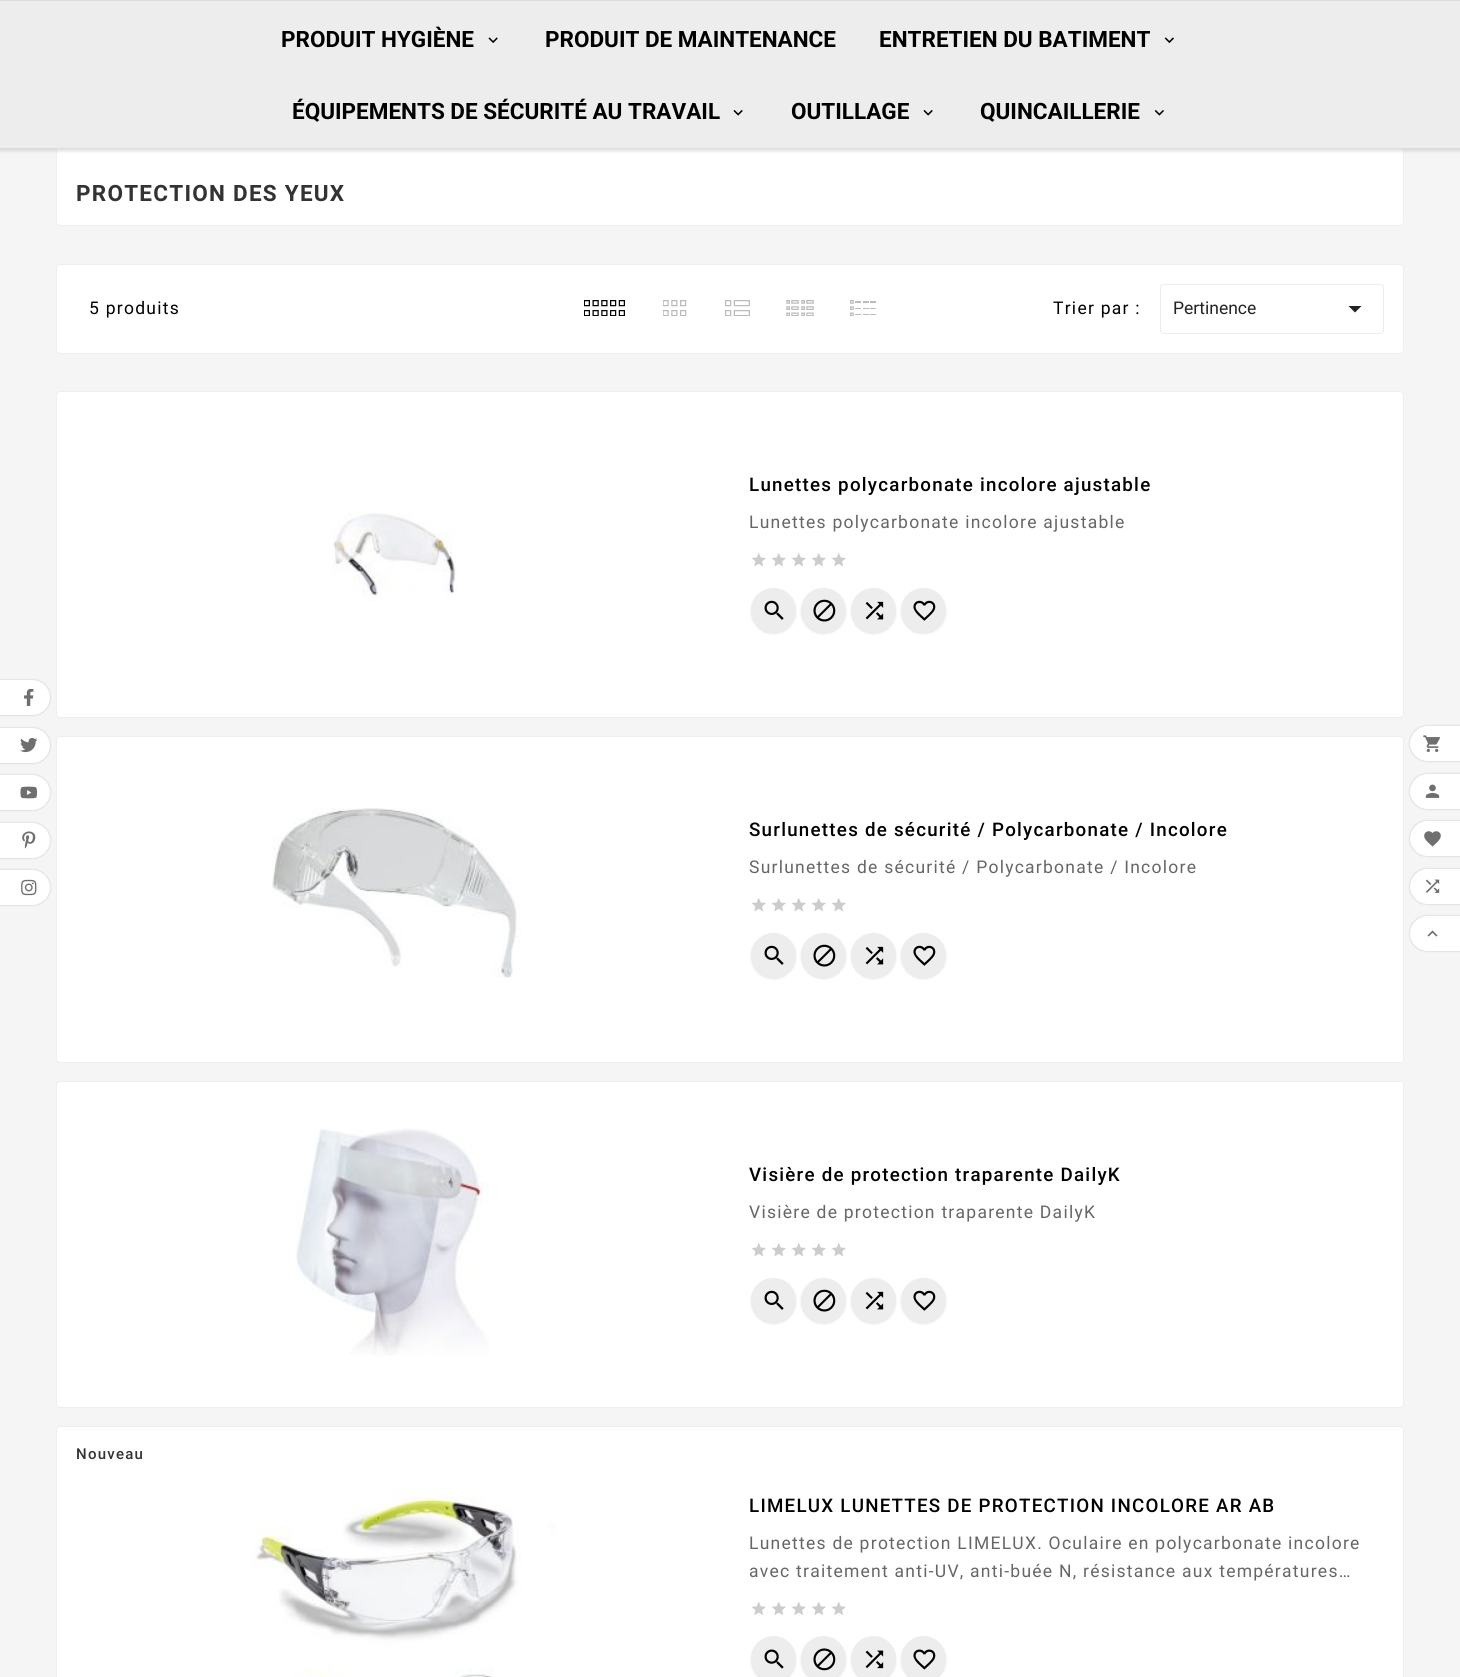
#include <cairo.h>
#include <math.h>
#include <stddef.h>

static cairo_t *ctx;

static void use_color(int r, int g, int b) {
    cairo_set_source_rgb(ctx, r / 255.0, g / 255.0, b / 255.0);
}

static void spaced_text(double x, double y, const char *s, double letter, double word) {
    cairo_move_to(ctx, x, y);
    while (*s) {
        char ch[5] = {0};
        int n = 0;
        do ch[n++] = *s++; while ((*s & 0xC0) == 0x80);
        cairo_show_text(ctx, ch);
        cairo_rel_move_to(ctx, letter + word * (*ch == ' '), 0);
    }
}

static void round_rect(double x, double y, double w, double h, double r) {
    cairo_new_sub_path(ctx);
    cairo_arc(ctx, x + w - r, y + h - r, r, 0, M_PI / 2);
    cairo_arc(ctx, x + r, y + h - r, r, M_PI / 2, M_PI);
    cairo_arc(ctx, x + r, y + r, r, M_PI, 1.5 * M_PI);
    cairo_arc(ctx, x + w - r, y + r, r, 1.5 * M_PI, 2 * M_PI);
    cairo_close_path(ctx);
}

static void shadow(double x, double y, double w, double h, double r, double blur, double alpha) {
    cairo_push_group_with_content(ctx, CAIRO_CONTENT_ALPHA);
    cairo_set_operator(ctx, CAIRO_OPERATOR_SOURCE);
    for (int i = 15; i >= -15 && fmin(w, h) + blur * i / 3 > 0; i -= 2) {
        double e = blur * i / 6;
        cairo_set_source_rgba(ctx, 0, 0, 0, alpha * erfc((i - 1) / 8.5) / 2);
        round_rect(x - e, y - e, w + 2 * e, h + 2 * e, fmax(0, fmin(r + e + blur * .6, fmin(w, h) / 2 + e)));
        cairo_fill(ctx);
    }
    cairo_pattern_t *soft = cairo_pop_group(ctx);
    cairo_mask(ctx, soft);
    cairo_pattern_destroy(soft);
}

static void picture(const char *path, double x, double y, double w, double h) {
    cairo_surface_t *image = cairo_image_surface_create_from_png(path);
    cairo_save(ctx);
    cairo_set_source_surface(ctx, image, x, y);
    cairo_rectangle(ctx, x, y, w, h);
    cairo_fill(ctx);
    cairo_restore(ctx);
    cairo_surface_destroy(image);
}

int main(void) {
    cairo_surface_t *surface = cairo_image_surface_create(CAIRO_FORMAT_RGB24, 1460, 1677);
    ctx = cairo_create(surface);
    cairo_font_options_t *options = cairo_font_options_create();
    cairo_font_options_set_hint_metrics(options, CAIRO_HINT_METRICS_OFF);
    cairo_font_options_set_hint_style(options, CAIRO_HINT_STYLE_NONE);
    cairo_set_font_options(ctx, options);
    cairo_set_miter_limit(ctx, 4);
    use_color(245, 245, 245);
    cairo_paint(ctx);
    use_color(255, 255, 255);
    round_rect(56, 141, 1348, 85, 4);
    cairo_fill(ctx);
    round_rect(56.5, 141.5, 1347, 84, 3.5);
    cairo_set_source_rgba(ctx, 0, 0, 0, 0.07);
    cairo_set_line_width(ctx, 1);
    cairo_stroke(ctx);
    use_color(128, 128, 128);
    shadow(-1, 0, 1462, 151, 0, 2, 0.27);
    use_color(237, 237, 237);
    cairo_rectangle(ctx, 0, 1, 1460, 147);
    cairo_fill(ctx);
    use_color(220, 220, 220);
    cairo_rectangle(ctx, 0, 0, 1460, 1);
    cairo_fill(ctx);
    cairo_rectangle(ctx, 0, 148, 1460, 1);
    cairo_fill(ctx);
    cairo_select_font_face(ctx, "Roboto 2", CAIRO_FONT_SLANT_NORMAL, CAIRO_FONT_WEIGHT_BOLD);
    cairo_set_font_size(ctx, 22.5);
    use_color(0, 0, 0);
    cairo_move_to(ctx, 281, 47);
    cairo_show_text(ctx, "PRODUIT HYGIÈNE");
    picture("img1.png", 488, 37, 10, 7);
    cairo_move_to(ctx, 545, 47);
    cairo_show_text(ctx, "PRODUIT DE MAINTENANCE");
    cairo_move_to(ctx, 879, 47);
    cairo_show_text(ctx, "ENTRETIEN DU BATIMENT");
    picture("img2.png", 1164, 37, 10, 7);
    cairo_move_to(ctx, 292, 119);
    cairo_show_text(ctx, "ÉQUIPEMENTS DE SÉCURITÉ AU TRAVAIL");
    picture("img3.png", 733, 110, 10, 6);
    cairo_move_to(ctx, 791, 119);
    cairo_show_text(ctx, "OUTILLAGE");
    picture("img3.png", 923, 110, 10, 6);
    cairo_move_to(ctx, 980, 119);
    cairo_show_text(ctx, "QUINCAILLERIE");
    picture("img4.png", 1154, 110, 10, 6);
    cairo_select_font_face(ctx, "Roboto", CAIRO_FONT_SLANT_NORMAL, CAIRO_FONT_WEIGHT_BOLD);
    use_color(51, 51, 51);
    spaced_text(76, 201, "PROTECTION DES YEUX", 1.25, 0);
    use_color(255, 255, 255);
    round_rect(56, 264, 1348, 90, 4);
    cairo_fill(ctx);
    round_rect(56.5, 264.5, 1347, 89, 3.5);
    cairo_set_source_rgba(ctx, 0, 0, 0, 0.07);
    cairo_stroke(ctx);
    cairo_select_font_face(ctx, "Roboto", CAIRO_FONT_SLANT_NORMAL, CAIRO_FONT_WEIGHT_NORMAL);
    cairo_set_font_size(ctx, 17.5);
    use_color(0, 0, 0);
    spaced_text(89, 314, "5 produits", 1.25, 0);
    picture("img5.png", 584, 300, 41, 16);
    picture("img6.png", 663, 300, 24, 16);
    picture("img7.png", 725, 300, 25, 16);
    picture("img8.png", 786, 300, 28, 16);
    picture("img9.png", 850, 300, 26, 16);
    spaced_text(1053, 314, "Trier par :", 1.25, 0);
    round_rect(1160.5, 284.5, 223, 49, 3.5);
    use_color(237, 237, 237);
    cairo_stroke(ctx);
    use_color(35, 35, 35);
    cairo_move_to(ctx, 1173, 314);
    cairo_show_text(ctx, "Pertinence");
    cairo_new_path(ctx);
    cairo_move_to(ctx, 1348.5, 306);
    cairo_line_to(ctx, 1361.5, 306);
    cairo_line_to(ctx, 1355, 312.5);
    cairo_close_path(ctx);
    cairo_fill(ctx);
    use_color(255, 255, 255);
    round_rect(56, 391, 1348, 327, 4);
    cairo_fill(ctx);
    round_rect(56.5, 391.5, 1347, 326, 3.5);
    cairo_set_source_rgba(ctx, 0, 0, 0, 0.07);
    cairo_stroke(ctx);
    cairo_select_font_face(ctx, "Roboto Medium", CAIRO_FONT_SLANT_NORMAL, CAIRO_FONT_WEIGHT_NORMAL);
    cairo_set_font_size(ctx, 18.75);
    use_color(0, 0, 0);
    spaced_text(749, 491, "Lunettes polycarbonate incolore ajustable", 1.25, 0);
    cairo_select_font_face(ctx, "Roboto", CAIRO_FONT_SLANT_NORMAL, CAIRO_FONT_WEIGHT_NORMAL);
    cairo_set_font_size(ctx, 17.5);
    use_color(102, 102, 102);
    spaced_text(749, 528, "Lunettes polycarbonate incolore ajustable", 1.25, 0);
    picture("img10.png", 751, 553, 15, 14);
    picture("img10.png", 771, 553, 15, 14);
    picture("img10.png", 791, 553, 15, 14);
    picture("img10.png", 811, 553, 15, 14);
    picture("img10.png", 831, 553, 15, 14);
    use_color(0, 0, 0);
    shadow(751, 589, 45, 45, 22.5, 1, 0.1);
    use_color(237, 237, 237);
    cairo_arc(ctx, 773.5, 610.5, 22.5, 0, 2 * M_PI);
    cairo_fill(ctx);
    picture("img11.png", 764, 600, 20, 20);
    use_color(0, 0, 0);
    shadow(801, 589, 45, 45, 22.5, 1, 0.1);
    use_color(237, 237, 237);
    cairo_arc(ctx, 823.5, 610.5, 22.5, 0, 2 * M_PI);
    cairo_fill(ctx);
    picture("img12.png", 813, 599, 23, 23);
    use_color(0, 0, 0);
    shadow(851, 589, 45, 45, 22.5, 1, 0.1);
    use_color(237, 237, 237);
    cairo_arc(ctx, 873.5, 610.5, 22.5, 0, 2 * M_PI);
    cairo_fill(ctx);
    picture("img13.png", 865, 601, 19, 19);
    use_color(0, 0, 0);
    shadow(901, 589, 45, 45, 22.5, 1, 0.1);
    use_color(237, 237, 237);
    cairo_arc(ctx, 923.5, 610.5, 22.5, 0, 2 * M_PI);
    cairo_fill(ctx);
    picture("img14.png", 913, 600, 23, 21);
    picture("img15.png", 332, 513, 125, 89);
    use_color(255, 255, 255);
    round_rect(56, 736, 1348, 327, 4);
    cairo_fill(ctx);
    round_rect(56.5, 736.5, 1347, 326, 3.5);
    cairo_set_source_rgba(ctx, 0, 0, 0, 0.07);
    cairo_stroke(ctx);
    picture("img16.png", 272, 808, 249, 170);
    cairo_select_font_face(ctx, "Roboto Medium", CAIRO_FONT_SLANT_NORMAL, CAIRO_FONT_WEIGHT_NORMAL);
    cairo_set_font_size(ctx, 18.75);
    use_color(0, 0, 0);
    spaced_text(749, 836, "Surlunettes de sécurité / Polycarbonate / Incolore", 1.25, 0);
    cairo_select_font_face(ctx, "Roboto", CAIRO_FONT_SLANT_NORMAL, CAIRO_FONT_WEIGHT_NORMAL);
    cairo_set_font_size(ctx, 17.5);
    use_color(102, 102, 102);
    spaced_text(749, 873, "Surlunettes de sécurité / Polycarbonate / Incolore", 1.25, 0);
    picture("img10.png", 751, 898, 15, 14);
    picture("img10.png", 771, 898, 15, 14);
    picture("img10.png", 791, 898, 15, 14);
    picture("img10.png", 811, 898, 15, 14);
    picture("img10.png", 831, 898, 15, 14);
    use_color(0, 0, 0);
    shadow(751, 934, 45, 45, 22.5, 1, 0.1);
    use_color(237, 237, 237);
    cairo_arc(ctx, 773.5, 955.5, 22.5, 0, 2 * M_PI);
    cairo_fill(ctx);
    picture("img11.png", 764, 945, 20, 20);
    use_color(0, 0, 0);
    shadow(801, 934, 45, 45, 22.5, 1, 0.1);
    use_color(237, 237, 237);
    cairo_arc(ctx, 823.5, 955.5, 22.5, 0, 2 * M_PI);
    cairo_fill(ctx);
    picture("img12.png", 813, 944, 23, 23);
    use_color(0, 0, 0);
    shadow(851, 934, 45, 45, 22.5, 1, 0.1);
    use_color(237, 237, 237);
    cairo_arc(ctx, 873.5, 955.5, 22.5, 0, 2 * M_PI);
    cairo_fill(ctx);
    picture("img13.png", 865, 946, 19, 19);
    use_color(0, 0, 0);
    shadow(901, 934, 45, 45, 22.5, 1, 0.1);
    use_color(237, 237, 237);
    cairo_arc(ctx, 923.5, 955.5, 22.5, 0, 2 * M_PI);
    cairo_fill(ctx);
    picture("img14.png", 913, 945, 23, 21);
    use_color(255, 255, 255);
    round_rect(56, 1081, 1348, 327, 4);
    cairo_fill(ctx);
    round_rect(56.5, 1081.5, 1347, 326, 3.5);
    cairo_set_source_rgba(ctx, 0, 0, 0, 0.07);
    cairo_stroke(ctx);
    picture("img17.png", 296, 1128, 193, 228);
    cairo_select_font_face(ctx, "Roboto Medium", CAIRO_FONT_SLANT_NORMAL, CAIRO_FONT_WEIGHT_NORMAL);
    cairo_set_font_size(ctx, 18.75);
    use_color(0, 0, 0);
    spaced_text(749, 1181, "Visière de protection traparente DailyK", 1.25, 0);
    cairo_select_font_face(ctx, "Roboto", CAIRO_FONT_SLANT_NORMAL, CAIRO_FONT_WEIGHT_NORMAL);
    cairo_set_font_size(ctx, 17.5);
    use_color(102, 102, 102);
    spaced_text(749, 1218, "Visière de protection traparente DailyK", 1.25, 0);
    picture("img10.png", 751, 1243, 15, 14);
    picture("img10.png", 771, 1243, 15, 14);
    picture("img10.png", 791, 1243, 15, 14);
    picture("img10.png", 811, 1243, 15, 14);
    picture("img10.png", 831, 1243, 15, 14);
    use_color(0, 0, 0);
    shadow(751, 1279, 45, 45, 22.5, 1, 0.1);
    use_color(237, 237, 237);
    cairo_arc(ctx, 773.5, 1300.5, 22.5, 0, 2 * M_PI);
    cairo_fill(ctx);
    picture("img11.png", 764, 1290, 20, 20);
    use_color(0, 0, 0);
    shadow(801, 1279, 45, 45, 22.5, 1, 0.1);
    use_color(237, 237, 237);
    cairo_arc(ctx, 823.5, 1300.5, 22.5, 0, 2 * M_PI);
    cairo_fill(ctx);
    picture("img12.png", 813, 1289, 23, 23);
    use_color(0, 0, 0);
    shadow(851, 1279, 45, 45, 22.5, 1, 0.1);
    use_color(237, 237, 237);
    cairo_arc(ctx, 873.5, 1300.5, 22.5, 0, 2 * M_PI);
    cairo_fill(ctx);
    picture("img13.png", 865, 1291, 19, 19);
    use_color(0, 0, 0);
    shadow(901, 1279, 45, 45, 22.5, 1, 0.1);
    use_color(237, 237, 237);
    cairo_arc(ctx, 923.5, 1300.5, 22.5, 0, 2 * M_PI);
    cairo_fill(ctx);
    picture("img14.png", 913, 1290, 23, 21);
    use_color(255, 255, 255);
    round_rect(56, 1426, 1348, 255, 4);
    cairo_fill(ctx);
    round_rect(56.5, 1426.5, 1347, 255, 3.5);
    cairo_set_source_rgba(ctx, 0, 0, 0, 0.07);
    cairo_stroke(ctx);
    cairo_select_font_face(ctx, "Roboto Medium", CAIRO_FONT_SLANT_NORMAL, CAIRO_FONT_WEIGHT_NORMAL);
    cairo_set_font_size(ctx, 15);
    use_color(51, 51, 51);
    spaced_text(76, 1459, "Nouveau", 1.25, 0);
    picture("img18.png", 252, 1487, 304, 190);
    cairo_set_font_size(ctx, 18.75);
    use_color(0, 0, 0);
    spaced_text(749, 1512, "LIMELUX LUNETTES DE PROTECTION INCOLORE AR AB", 1.25, 0);
    cairo_select_font_face(ctx, "Roboto", CAIRO_FONT_SLANT_NORMAL, CAIRO_FONT_WEIGHT_NORMAL);
    cairo_set_font_size(ctx, 17.5);
    use_color(102, 102, 102);
    spaced_text(749, 1549, "Lunettes de protection LIMELUX. Oculaire en polycarbonate incolore", 1.25, 0);
    spaced_text(749, 1577, "avec traitement anti-UV, anti-buée N, résistance aux températures…", 1.25, 0);
    picture("img19.png", 751, 1601, 15, 14);
    picture("img19.png", 771, 1601, 15, 14);
    picture("img19.png", 791, 1601, 15, 14);
    picture("img19.png", 811, 1601, 15, 14);
    picture("img19.png", 831, 1601, 15, 14);
    use_color(0, 0, 0);
    shadow(751, 1638, 45, 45, 22.5, 1, 0.1);
    use_color(237, 237, 237);
    cairo_arc(ctx, 773.5, 1658.5, 22.5, 0, 2 * M_PI);
    cairo_fill(ctx);
    picture("img20.png", 764, 1649, 20, 20);
    use_color(0, 0, 0);
    shadow(801, 1638, 45, 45, 22.5, 1, 0.1);
    use_color(237, 237, 237);
    cairo_arc(ctx, 823.5, 1658.5, 22.5, 0, 2 * M_PI);
    cairo_fill(ctx);
    picture("img21.png", 813, 1648, 23, 23);
    use_color(0, 0, 0);
    shadow(851, 1638, 45, 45, 22.5, 1, 0.1);
    use_color(237, 237, 237);
    cairo_arc(ctx, 873.5, 1658.5, 22.5, 0, 2 * M_PI);
    cairo_fill(ctx);
    picture("img22.png", 865, 1650, 19, 19);
    use_color(0, 0, 0);
    shadow(901, 1638, 45, 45, 22.5, 1, 0.1);
    use_color(237, 237, 237);
    cairo_arc(ctx, 923.5, 1658.5, 22.5, 0, 2 * M_PI);
    cairo_fill(ctx);
    picture("img23.png", 913, 1649, 23, 21);
    use_color(0, 0, 0);
    shadow(-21, 680, 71, 35, 17.5, 1, 0.2);
    use_color(255, 255, 255);
    cairo_new_path(ctx);
    cairo_move_to(ctx, -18, 680);
    cairo_line_to(ctx, 32.5, 680);
    cairo_curve_to(ctx, 42, 680, 50, 688, 50, 697.5);
    cairo_curve_to(ctx, 50, 707, 42, 715, 32.5, 715);
    cairo_line_to(ctx, -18, 715);
    cairo_close_path(ctx);
    cairo_fill(ctx);
    picture("img24.png", 24, 689, 10, 17);
    use_color(0, 0, 0);
    shadow(-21, 728, 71, 35, 17.5, 1, 0.2);
    use_color(255, 255, 255);
    cairo_new_path(ctx);
    cairo_move_to(ctx, -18, 728);
    cairo_line_to(ctx, 32.5, 728);
    cairo_curve_to(ctx, 42, 728, 50, 736, 50, 745.5);
    cairo_curve_to(ctx, 50, 755, 42, 763, 32.5, 763);
    cairo_line_to(ctx, -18, 763);
    cairo_close_path(ctx);
    cairo_fill(ctx);
    picture("img25.png", 20, 737, 18, 16);
    use_color(0, 0, 0);
    shadow(-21, 775, 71, 35, 17.5, 1, 0.2);
    use_color(255, 255, 255);
    cairo_new_path(ctx);
    cairo_move_to(ctx, -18, 775);
    cairo_line_to(ctx, 32.5, 775);
    cairo_curve_to(ctx, 42, 775, 50, 783, 50, 792.5);
    cairo_curve_to(ctx, 50, 802, 42, 810, 32.5, 810);
    cairo_line_to(ctx, -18, 810);
    cairo_close_path(ctx);
    cairo_fill(ctx);
    picture("img26.png", 20, 786, 18, 13);
    use_color(0, 0, 0);
    shadow(-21, 823, 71, 35, 17.5, 1, 0.2);
    use_color(255, 255, 255);
    cairo_new_path(ctx);
    cairo_move_to(ctx, -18, 823);
    cairo_line_to(ctx, 32.5, 823);
    cairo_curve_to(ctx, 42, 823, 50, 831, 50, 840.5);
    cairo_curve_to(ctx, 50, 850, 42, 858, 32.5, 858);
    cairo_line_to(ctx, -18, 858);
    cairo_close_path(ctx);
    cairo_fill(ctx);
    picture("img27.png", 22, 831, 14, 18);
    use_color(0, 0, 0);
    shadow(-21, 870, 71, 35, 17.5, 1, 0.2);
    use_color(255, 255, 255);
    cairo_new_path(ctx);
    cairo_move_to(ctx, -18, 870);
    cairo_line_to(ctx, 32.5, 870);
    cairo_curve_to(ctx, 42, 870, 50, 878, 50, 887.5);
    cairo_curve_to(ctx, 50, 897, 42, 905, 32.5, 905);
    cairo_line_to(ctx, -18, 905);
    cairo_close_path(ctx);
    cairo_fill(ctx);
    picture("img28.png", 21, 879, 16, 17);
    use_color(0, 0, 0);
    shadow(1410, 726, 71, 35, 17.5, 1, 0.2);
    use_color(255, 255, 255);
    cairo_new_path(ctx);
    cairo_move_to(ctx, 1427.5, 726);
    cairo_line_to(ctx, 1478, 726);
    cairo_line_to(ctx, 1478, 761);
    cairo_line_to(ctx, 1427.5, 761);
    cairo_curve_to(ctx, 1418, 761, 1410, 753, 1410, 743.5);
    cairo_curve_to(ctx, 1410, 734, 1418, 726, 1427.5, 726);
    cairo_close_path(ctx);
    cairo_fill(ctx);
    picture("img29.png", 1423, 735, 17, 17);
    use_color(0, 0, 0);
    shadow(1410, 774, 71, 35, 17.5, 1, 0.2);
    use_color(255, 255, 255);
    cairo_new_path(ctx);
    cairo_move_to(ctx, 1427.5, 774);
    cairo_line_to(ctx, 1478, 774);
    cairo_line_to(ctx, 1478, 809);
    cairo_line_to(ctx, 1427.5, 809);
    cairo_curve_to(ctx, 1418, 809, 1410, 801, 1410, 791.5);
    cairo_curve_to(ctx, 1410, 782, 1418, 774, 1427.5, 774);
    cairo_close_path(ctx);
    cairo_fill(ctx);
    picture("img30.png", 1425, 784, 15, 14);
    use_color(0, 0, 0);
    shadow(1410, 821, 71, 35, 17.5, 1, 0.2);
    use_color(255, 255, 255);
    cairo_new_path(ctx);
    cairo_move_to(ctx, 1427.5, 821);
    cairo_line_to(ctx, 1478, 821);
    cairo_line_to(ctx, 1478, 856);
    cairo_line_to(ctx, 1427.5, 856);
    cairo_curve_to(ctx, 1418, 856, 1410, 848, 1410, 838.5);
    cairo_curve_to(ctx, 1410, 829, 1418, 821, 1427.5, 821);
    cairo_close_path(ctx);
    cairo_fill(ctx);
    picture("img31.png", 1424, 831, 17, 16);
    use_color(0, 0, 0);
    shadow(1410, 869, 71, 35, 17.5, 1, 0.2);
    use_color(255, 255, 255);
    cairo_new_path(ctx);
    cairo_move_to(ctx, 1427.5, 869);
    cairo_line_to(ctx, 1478, 869);
    cairo_line_to(ctx, 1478, 904);
    cairo_line_to(ctx, 1427.5, 904);
    cairo_curve_to(ctx, 1418, 904, 1410, 896, 1410, 886.5);
    cairo_curve_to(ctx, 1410, 877, 1418, 869, 1427.5, 869);
    cairo_close_path(ctx);
    cairo_fill(ctx);
    picture("img32.png", 1425, 879, 15, 14);
    use_color(0, 0, 0);
    shadow(1410, 916, 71, 35, 17.5, 1, 0.2);
    use_color(255, 255, 255);
    cairo_new_path(ctx);
    cairo_move_to(ctx, 1427.5, 916);
    cairo_line_to(ctx, 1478, 916);
    cairo_line_to(ctx, 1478, 951);
    cairo_line_to(ctx, 1427.5, 951);
    cairo_curve_to(ctx, 1418, 951, 1410, 943, 1410, 933.5);
    cairo_curve_to(ctx, 1410, 924, 1418, 916, 1427.5, 916);
    cairo_close_path(ctx);
    cairo_fill(ctx);
    picture("img33.png", 1427, 930, 11, 7);
    cairo_surface_write_to_png(surface, "result.png");
    cairo_font_options_destroy(options);
    cairo_destroy(ctx);
    cairo_surface_destroy(surface);
    return 0;
}
